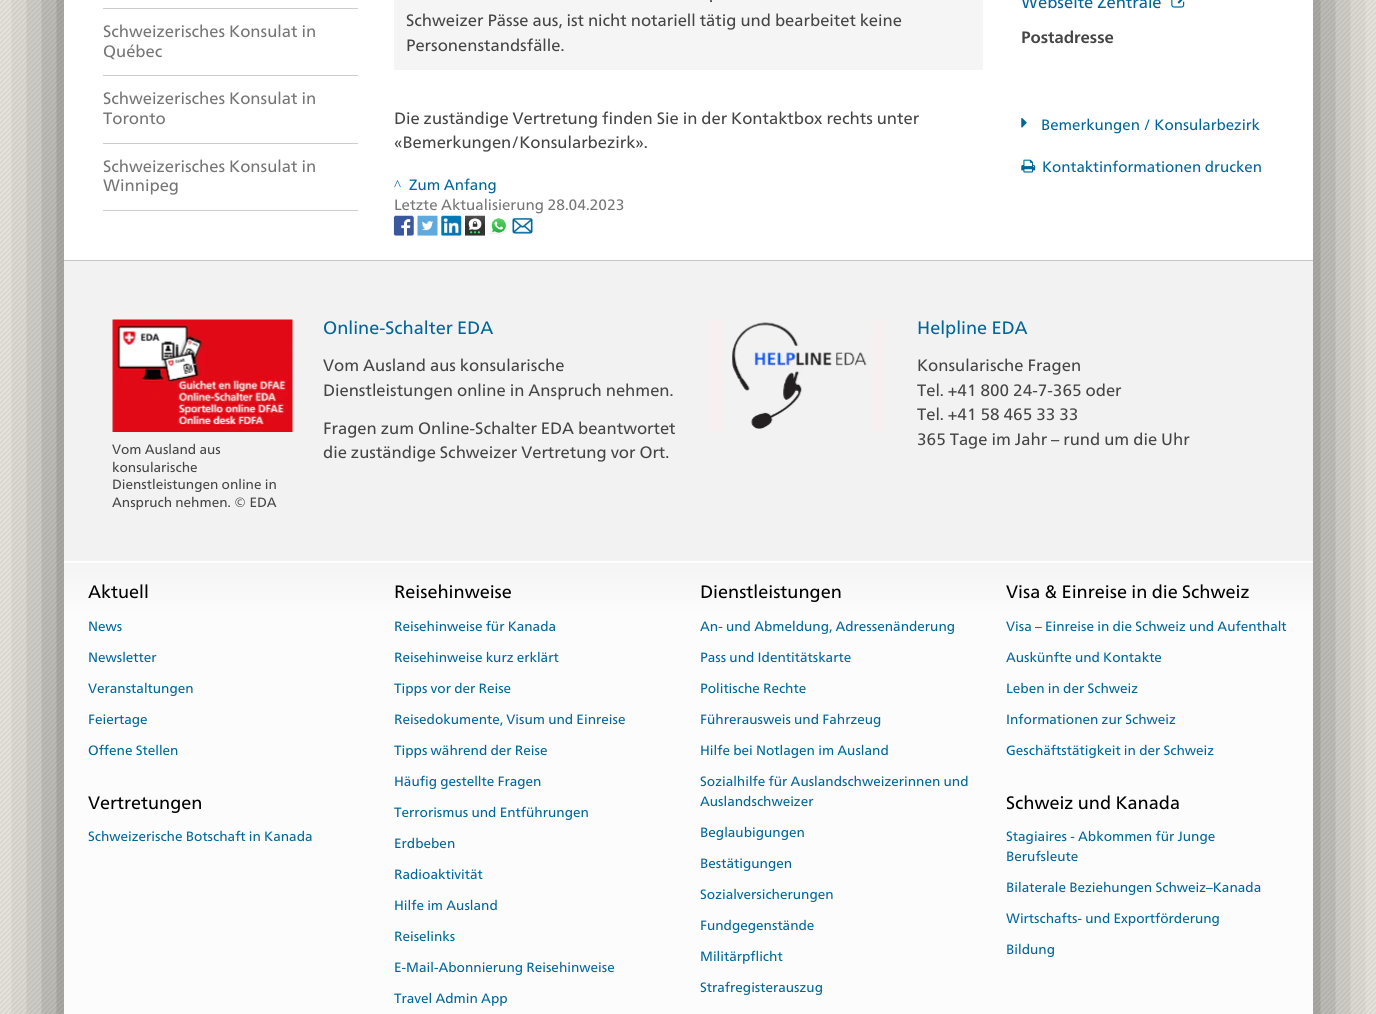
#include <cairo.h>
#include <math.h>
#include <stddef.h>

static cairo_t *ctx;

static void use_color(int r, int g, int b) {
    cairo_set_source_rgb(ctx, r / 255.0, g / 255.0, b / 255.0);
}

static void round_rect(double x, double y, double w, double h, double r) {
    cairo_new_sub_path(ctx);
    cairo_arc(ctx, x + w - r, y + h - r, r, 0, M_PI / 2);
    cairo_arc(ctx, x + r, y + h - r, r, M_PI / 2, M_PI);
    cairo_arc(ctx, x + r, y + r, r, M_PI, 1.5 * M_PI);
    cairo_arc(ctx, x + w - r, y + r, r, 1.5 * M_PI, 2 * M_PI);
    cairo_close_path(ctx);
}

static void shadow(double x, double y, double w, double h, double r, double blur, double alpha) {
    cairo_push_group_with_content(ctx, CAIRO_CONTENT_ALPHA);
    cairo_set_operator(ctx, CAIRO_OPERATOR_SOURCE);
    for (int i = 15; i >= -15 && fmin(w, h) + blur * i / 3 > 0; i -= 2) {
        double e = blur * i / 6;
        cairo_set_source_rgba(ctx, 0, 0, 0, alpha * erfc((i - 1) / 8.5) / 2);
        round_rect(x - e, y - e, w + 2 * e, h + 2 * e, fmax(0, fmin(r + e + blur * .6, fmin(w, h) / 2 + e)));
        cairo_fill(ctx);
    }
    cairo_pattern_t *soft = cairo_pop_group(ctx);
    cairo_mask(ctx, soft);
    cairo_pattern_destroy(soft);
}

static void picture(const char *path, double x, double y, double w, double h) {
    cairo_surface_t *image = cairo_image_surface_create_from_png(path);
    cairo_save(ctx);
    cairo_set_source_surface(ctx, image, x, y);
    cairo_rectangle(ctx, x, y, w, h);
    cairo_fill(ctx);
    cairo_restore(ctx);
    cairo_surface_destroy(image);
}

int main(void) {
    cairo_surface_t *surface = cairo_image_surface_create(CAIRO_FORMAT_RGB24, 1376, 1014);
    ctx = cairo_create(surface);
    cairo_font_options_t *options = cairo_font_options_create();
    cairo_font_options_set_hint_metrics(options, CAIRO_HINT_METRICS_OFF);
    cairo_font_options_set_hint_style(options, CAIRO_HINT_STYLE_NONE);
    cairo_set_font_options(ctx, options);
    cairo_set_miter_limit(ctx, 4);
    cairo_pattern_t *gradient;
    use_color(255, 255, 255);
    cairo_paint(ctx);
    picture("img1.png", 0, 0, 1376, 1014);
    use_color(0, 0, 0);
    shadow(64, -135, 1249, 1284, 0, 45, 0.6);
    use_color(255, 255, 255);
    cairo_rectangle(ctx, 64, 0, 1249, 260);
    cairo_fill(ctx);
    use_color(204, 204, 204);
    cairo_rectangle(ctx, 103, 8, 255, 1);
    cairo_fill(ctx);
    cairo_rectangle(ctx, 103, 75, 255, 1);
    cairo_fill(ctx);
    cairo_select_font_face(ctx, "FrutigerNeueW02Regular", CAIRO_FONT_SLANT_NORMAL, CAIRO_FONT_WEIGHT_NORMAL);
    cairo_set_font_size(ctx, 16.5);
    use_color(117, 117, 117);
    cairo_move_to(ctx, 103, 37);
    cairo_show_text(ctx, "Schweizerisches Konsulat in");
    cairo_move_to(ctx, 103, 57);
    cairo_show_text(ctx, "Québec");
    use_color(204, 204, 204);
    cairo_rectangle(ctx, 103, 143, 255, 1);
    cairo_fill(ctx);
    use_color(117, 117, 117);
    cairo_move_to(ctx, 103, 104);
    cairo_show_text(ctx, "Schweizerisches Konsulat in");
    cairo_move_to(ctx, 103, 124);
    cairo_show_text(ctx, "Toronto");
    use_color(204, 204, 204);
    cairo_rectangle(ctx, 103, 210, 255, 1);
    cairo_fill(ctx);
    use_color(117, 117, 117);
    cairo_move_to(ctx, 103, 172);
    cairo_show_text(ctx, "Schweizerisches Konsulat in");
    cairo_move_to(ctx, 103, 191);
    cairo_show_text(ctx, "Winnipeg");
    use_color(245, 245, 245);
    cairo_rectangle(ctx, 394, 0, 589, 70);
    cairo_fill(ctx);
    use_color(69, 69, 69);
    cairo_move_to(ctx, 709, 2);
    cairo_show_text(ctx, ".");
    cairo_move_to(ctx, 406, 26);
    cairo_show_text(ctx, "Schweizer Pässe aus, ist nicht notariell tätig und bearbeitet keine");
    cairo_move_to(ctx, 406, 51);
    cairo_show_text(ctx, "Personenstandsfälle.");
    cairo_move_to(ctx, 394, 124);
    cairo_show_text(ctx, "Die zuständige Vertretung finden Sie in der Kontaktbox rechts unter");
    cairo_move_to(ctx, 394, 148);
    cairo_show_text(ctx, "«Bemerkungen/Konsularbezirk».");
    cairo_select_font_face(ctx, "Liberation Serif", CAIRO_FONT_SLANT_NORMAL, CAIRO_FONT_WEIGHT_NORMAL);
    cairo_set_font_size(ctx, 15);
    use_color(0, 102, 153);
    cairo_move_to(ctx, 394, 190);
    cairo_show_text(ctx, "^");
    cairo_select_font_face(ctx, "FrutigerNeueW02Regular", CAIRO_FONT_SLANT_NORMAL, CAIRO_FONT_WEIGHT_NORMAL);
    cairo_move_to(ctx, 409, 190);
    cairo_show_text(ctx, "Zum Anfang");
    use_color(117, 117, 117);
    cairo_move_to(ctx, 394, 210);
    cairo_show_text(ctx, "Letzte Aktualisierung 28.04.2023");
    picture("img2.png", 393, 215, 21, 21);
    picture("img3.png", 417, 215, 21, 21);
    picture("img4.png", 441, 215, 21, 21);
    picture("img5.png", 465, 215, 20, 21);
    picture("img6.png", 490, 218, 18, 17);
    picture("img7.png", 512, 218, 21, 16);
    cairo_set_font_size(ctx, 16.5);
    use_color(0, 102, 153);
    cairo_move_to(ctx, 1021, 8);
    cairo_show_text(ctx, "Webseite Zentrale");
    picture("img8.png", 1171, 0, 14, 8);
    cairo_select_font_face(ctx, "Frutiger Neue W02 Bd", CAIRO_FONT_SLANT_NORMAL, CAIRO_FONT_WEIGHT_BOLD);
    use_color(69, 69, 69);
    cairo_move_to(ctx, 1021, 43);
    cairo_show_text(ctx, "Postadresse");
    picture("img9.png", 1021, 118, 6, 10);
    cairo_select_font_face(ctx, "FrutigerNeueW02Regular", CAIRO_FONT_SLANT_NORMAL, CAIRO_FONT_WEIGHT_NORMAL);
    cairo_set_font_size(ctx, 15);
    use_color(0, 102, 153);
    cairo_move_to(ctx, 1041, 130);
    cairo_show_text(ctx, "Bemerkungen / Konsularbezirk");
    picture("img10.png", 1021, 159, 15, 14);
    cairo_move_to(ctx, 1042, 172);
    cairo_show_text(ctx, "Kontaktinformationen drucken");
    use_color(242, 242, 242);
    cairo_rectangle(ctx, 64, 261, 1249, 300);
    cairo_fill(ctx);
    use_color(197, 197, 197);
    cairo_rectangle(ctx, 64, 260, 1249, 1);
    cairo_fill(ctx);
    cairo_set_font_size(ctx, 18);
    use_color(0, 102, 153);
    cairo_move_to(ctx, 323, 334);
    cairo_show_text(ctx, "Online-Schalter EDA");
    cairo_set_font_size(ctx, 16.5);
    use_color(69, 69, 69);
    cairo_move_to(ctx, 323, 371);
    cairo_show_text(ctx, "Vom Ausland aus konsularische");
    cairo_move_to(ctx, 323, 396);
    cairo_show_text(ctx, "Dienstleistungen online in Anspruch nehmen.");
    picture("img11.png", 112, 319, 181, 113);
    cairo_set_font_size(ctx, 13.5);
    cairo_move_to(ctx, 112, 454);
    cairo_show_text(ctx, "Vom Ausland aus");
    cairo_move_to(ctx, 112, 472);
    cairo_show_text(ctx, "konsularische");
    cairo_move_to(ctx, 112, 489);
    cairo_show_text(ctx, "Dienstleistungen online in");
    cairo_move_to(ctx, 112, 507);
    cairo_show_text(ctx, "Anspruch nehmen. © EDA");
    cairo_set_font_size(ctx, 16.5);
    cairo_move_to(ctx, 323, 434);
    cairo_show_text(ctx, "Fragen zum Online-Schalter EDA beantwortet");
    cairo_move_to(ctx, 323, 458);
    cairo_show_text(ctx, "die zuständige Schweizer Vertretung vor Ort.");
    picture("img12.png", 707, 320, 179, 112);
    cairo_set_font_size(ctx, 18);
    use_color(0, 102, 153);
    cairo_move_to(ctx, 917, 334);
    cairo_show_text(ctx, "Helpline EDA");
    cairo_set_font_size(ctx, 16.5);
    use_color(69, 69, 69);
    cairo_move_to(ctx, 917, 371);
    cairo_show_text(ctx, "Konsularische Fragen");
    cairo_move_to(ctx, 917, 396);
    cairo_show_text(ctx, "Tel. +41 800 24-7-365 oder");
    cairo_move_to(ctx, 917, 420);
    cairo_show_text(ctx, "Tel. +41 58 465 33 33");
    cairo_move_to(ctx, 917, 445);
    cairo_show_text(ctx, "365 Tage im Jahr – rund um die Uhr");
    gradient = cairo_pattern_create_linear(688, -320, 688, 563);
    cairo_pattern_add_color_stop_rgba(gradient, 0, 0.957, 0.957, 0.957, 1);
    cairo_pattern_add_color_stop_rgba(gradient, 0.06, 0.988, 0.988, 0.988, 1);
    cairo_set_source(ctx, gradient);
    cairo_pattern_destroy(gradient);
    cairo_rectangle(ctx, 64, 562, 1249, 1);
    cairo_fill(ctx);
    gradient = cairo_pattern_create_linear(688, 562, 688, 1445);
    cairo_pattern_add_color_stop_rgba(gradient, 0, 0.957, 0.957, 0.957, 1);
    cairo_pattern_add_color_stop_rgba(gradient, 0.06, 0.988, 0.988, 0.988, 1);
    cairo_set_source(ctx, gradient);
    cairo_pattern_destroy(gradient);
    cairo_rectangle(ctx, 64, 563, 1249, 451);
    cairo_fill(ctx);
    use_color(255, 255, 255);
    cairo_rectangle(ctx, 64, 561, 1249, 1);
    cairo_fill(ctx);
    cairo_set_font_size(ctx, 18);
    use_color(0, 0, 0);
    cairo_move_to(ctx, 88, 598);
    cairo_show_text(ctx, "Aktuell");
    cairo_set_font_size(ctx, 13.5);
    use_color(0, 102, 153);
    cairo_move_to(ctx, 88, 631);
    cairo_show_text(ctx, "News");
    cairo_move_to(ctx, 88, 662);
    cairo_show_text(ctx, "Newsletter");
    cairo_move_to(ctx, 88, 693);
    cairo_show_text(ctx, "Veranstaltungen");
    cairo_move_to(ctx, 88, 724);
    cairo_show_text(ctx, "Feiertage");
    cairo_move_to(ctx, 88, 755);
    cairo_show_text(ctx, "Offene Stellen");
    cairo_set_font_size(ctx, 18);
    use_color(0, 0, 0);
    cairo_move_to(ctx, 88, 809);
    cairo_show_text(ctx, "Vertretungen");
    cairo_set_font_size(ctx, 13.5);
    use_color(0, 102, 153);
    cairo_move_to(ctx, 88, 841);
    cairo_show_text(ctx, "Schweizerische Botschaft in Kanada");
    cairo_set_font_size(ctx, 18);
    use_color(0, 0, 0);
    cairo_move_to(ctx, 394, 598);
    cairo_show_text(ctx, "Reisehinweise");
    cairo_set_font_size(ctx, 13.5);
    use_color(0, 102, 153);
    cairo_move_to(ctx, 394, 631);
    cairo_show_text(ctx, "Reisehinweise für Kanada");
    cairo_move_to(ctx, 394, 662);
    cairo_show_text(ctx, "Reisehinweise kurz erklärt");
    cairo_move_to(ctx, 394, 693);
    cairo_show_text(ctx, "Tipps vor der Reise");
    cairo_move_to(ctx, 394, 724);
    cairo_show_text(ctx, "Reisedokumente, Visum und Einreise");
    cairo_move_to(ctx, 394, 755);
    cairo_show_text(ctx, "Tipps während der Reise");
    cairo_move_to(ctx, 394, 786);
    cairo_show_text(ctx, "Häufig gestellte Fragen");
    cairo_move_to(ctx, 394, 817);
    cairo_show_text(ctx, "Terrorismus und Entführungen");
    cairo_move_to(ctx, 394, 848);
    cairo_show_text(ctx, "Erdbeben");
    cairo_move_to(ctx, 394, 879);
    cairo_show_text(ctx, "Radioaktivität");
    cairo_move_to(ctx, 394, 910);
    cairo_show_text(ctx, "Hilfe im Ausland");
    cairo_move_to(ctx, 394, 941);
    cairo_show_text(ctx, "Reiselinks");
    cairo_move_to(ctx, 394, 972);
    cairo_show_text(ctx, "E-Mail-Abonnierung Reisehinweise");
    cairo_move_to(ctx, 394, 1003);
    cairo_show_text(ctx, "Travel Admin App");
    cairo_set_font_size(ctx, 18);
    use_color(0, 0, 0);
    cairo_move_to(ctx, 700, 598);
    cairo_show_text(ctx, "Dienstleistungen");
    cairo_set_font_size(ctx, 13.5);
    use_color(0, 102, 153);
    cairo_move_to(ctx, 700, 631);
    cairo_show_text(ctx, "An- und Abmeldung, Adressenänderung");
    cairo_move_to(ctx, 700, 662);
    cairo_show_text(ctx, "Pass und Identitätskarte");
    cairo_move_to(ctx, 700, 693);
    cairo_show_text(ctx, "Politische Rechte");
    cairo_move_to(ctx, 700, 724);
    cairo_show_text(ctx, "Führerausweis und Fahrzeug");
    cairo_move_to(ctx, 700, 755);
    cairo_show_text(ctx, "Hilfe bei Notlagen im Ausland");
    cairo_move_to(ctx, 700, 786);
    cairo_show_text(ctx, "Sozialhilfe für Auslandschweizerinnen und");
    cairo_move_to(ctx, 700, 806);
    cairo_show_text(ctx, "Auslandschweizer");
    cairo_move_to(ctx, 700, 837);
    cairo_show_text(ctx, "Beglaubigungen");
    cairo_move_to(ctx, 700, 868);
    cairo_show_text(ctx, "Bestätigungen");
    cairo_move_to(ctx, 700, 899);
    cairo_show_text(ctx, "Sozialversicherungen");
    cairo_move_to(ctx, 700, 930);
    cairo_show_text(ctx, "Fundgegenstände");
    cairo_move_to(ctx, 700, 961);
    cairo_show_text(ctx, "Militärpflicht");
    cairo_move_to(ctx, 700, 992);
    cairo_show_text(ctx, "Strafregisterauszug");
    cairo_set_font_size(ctx, 18);
    use_color(0, 0, 0);
    cairo_move_to(ctx, 1006, 598);
    cairo_show_text(ctx, "Visa & Einreise in die Schweiz");
    cairo_set_font_size(ctx, 13.5);
    use_color(0, 102, 153);
    cairo_move_to(ctx, 1006, 631);
    cairo_show_text(ctx, "Visa – Einreise in die Schweiz und Aufenthalt");
    cairo_move_to(ctx, 1006, 662);
    cairo_show_text(ctx, "Auskünfte und Kontakte");
    cairo_move_to(ctx, 1006, 693);
    cairo_show_text(ctx, "Leben in der Schweiz");
    cairo_move_to(ctx, 1006, 724);
    cairo_show_text(ctx, "Informationen zur Schweiz");
    cairo_move_to(ctx, 1006, 755);
    cairo_show_text(ctx, "Geschäftstätigkeit in der Schweiz");
    cairo_set_font_size(ctx, 18);
    use_color(0, 0, 0);
    cairo_move_to(ctx, 1006, 809);
    cairo_show_text(ctx, "Schweiz und Kanada");
    cairo_set_font_size(ctx, 13.5);
    use_color(0, 102, 153);
    cairo_move_to(ctx, 1006, 841);
    cairo_show_text(ctx, "Stagiaires - Abkommen für Junge");
    cairo_move_to(ctx, 1006, 861);
    cairo_show_text(ctx, "Berufsleute");
    cairo_move_to(ctx, 1006, 892);
    cairo_show_text(ctx, "Bilaterale Beziehungen Schweiz–Kanada");
    cairo_move_to(ctx, 1006, 923);
    cairo_show_text(ctx, "Wirtschafts- und Exportförderung");
    cairo_move_to(ctx, 1006, 954);
    cairo_show_text(ctx, "Bildung");
    cairo_surface_write_to_png(surface, "result.png");
    cairo_font_options_destroy(options);
    cairo_destroy(ctx);
    cairo_surface_destroy(surface);
    return 0;
}
